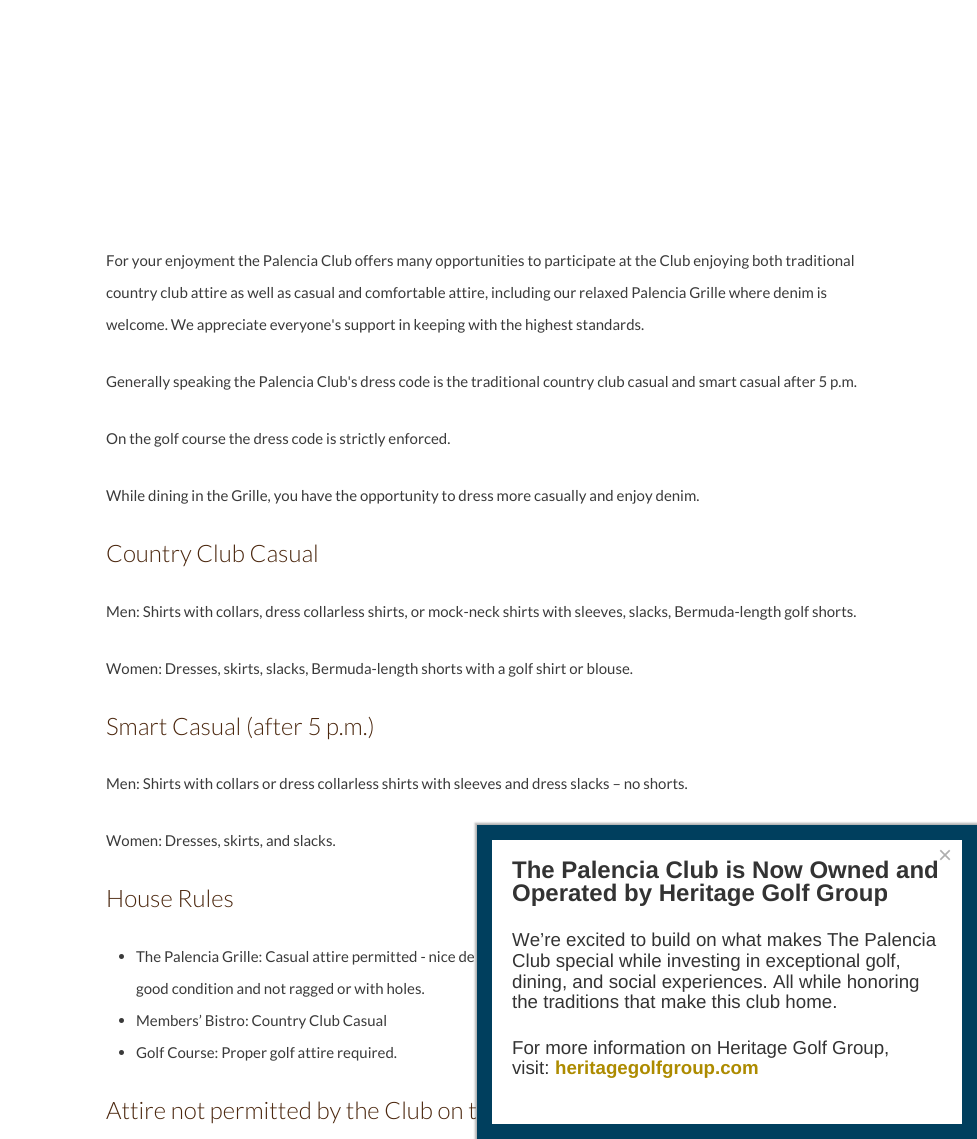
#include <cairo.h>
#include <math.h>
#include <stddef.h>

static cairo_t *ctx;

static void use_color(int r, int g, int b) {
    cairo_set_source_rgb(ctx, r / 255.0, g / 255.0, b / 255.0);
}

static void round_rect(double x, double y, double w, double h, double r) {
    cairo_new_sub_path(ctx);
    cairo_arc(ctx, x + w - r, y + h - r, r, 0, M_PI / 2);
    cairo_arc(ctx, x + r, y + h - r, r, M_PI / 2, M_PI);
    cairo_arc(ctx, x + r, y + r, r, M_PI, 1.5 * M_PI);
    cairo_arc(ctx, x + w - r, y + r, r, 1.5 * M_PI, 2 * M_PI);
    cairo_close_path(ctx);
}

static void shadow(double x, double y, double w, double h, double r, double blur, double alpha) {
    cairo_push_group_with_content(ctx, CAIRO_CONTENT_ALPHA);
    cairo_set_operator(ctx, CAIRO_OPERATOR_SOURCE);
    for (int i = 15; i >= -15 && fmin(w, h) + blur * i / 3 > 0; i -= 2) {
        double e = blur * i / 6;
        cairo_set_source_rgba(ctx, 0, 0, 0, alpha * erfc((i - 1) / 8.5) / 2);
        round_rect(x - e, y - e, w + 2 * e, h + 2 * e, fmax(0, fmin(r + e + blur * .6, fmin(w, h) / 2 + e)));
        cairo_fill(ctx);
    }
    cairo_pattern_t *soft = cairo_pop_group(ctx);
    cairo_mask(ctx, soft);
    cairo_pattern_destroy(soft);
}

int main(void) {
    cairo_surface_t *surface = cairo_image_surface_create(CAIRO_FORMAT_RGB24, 977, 1139);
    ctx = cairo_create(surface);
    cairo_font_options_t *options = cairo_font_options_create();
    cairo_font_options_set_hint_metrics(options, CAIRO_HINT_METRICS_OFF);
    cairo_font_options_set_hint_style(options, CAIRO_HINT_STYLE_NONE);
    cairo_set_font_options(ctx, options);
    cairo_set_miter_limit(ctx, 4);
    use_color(255, 255, 255);
    cairo_paint(ctx);
    cairo_select_font_face(ctx, "Lato", CAIRO_FONT_SLANT_NORMAL, CAIRO_FONT_WEIGHT_NORMAL);
    cairo_set_font_size(ctx, 15);
    use_color(58, 58, 58);
    cairo_move_to(ctx, 106, 266);
    cairo_show_text(ctx, "For your enjoyment the Palencia Club offers many opportunities to participate at the Club enjoying both traditional");
    cairo_move_to(ctx, 106, 298);
    cairo_show_text(ctx, "country club attire as well as casual and comfortable attire, including our relaxed Palencia Grille where denim is");
    cairo_move_to(ctx, 106, 330);
    cairo_show_text(ctx, "welcome. We appreciate everyone's support in keeping with the highest standards.");
    cairo_move_to(ctx, 106, 387);
    cairo_show_text(ctx, "Generally speaking the Palencia Club's dress code is the traditional country club casual and smart casual after 5 p.m.");
    cairo_move_to(ctx, 106, 444);
    cairo_show_text(ctx, "On the golf course the dress code is strictly enforced.");
    cairo_move_to(ctx, 106, 501);
    cairo_show_text(ctx, "While dining in the Grille, you have the opportunity to dress more casually and enjoy denim.");
    cairo_select_font_face(ctx, "Lato Light", CAIRO_FONT_SLANT_NORMAL, CAIRO_FONT_WEIGHT_NORMAL);
    cairo_set_font_size(ctx, 24);
    use_color(75, 39, 14);
    cairo_move_to(ctx, 106, 562);
    cairo_show_text(ctx, "Country Club Casual");
    cairo_select_font_face(ctx, "Lato", CAIRO_FONT_SLANT_NORMAL, CAIRO_FONT_WEIGHT_NORMAL);
    cairo_set_font_size(ctx, 15);
    use_color(58, 58, 58);
    cairo_move_to(ctx, 106, 617);
    cairo_show_text(ctx, "Men: Shirts with collars, dress collarless shirts, or mock-neck shirts with sleeves, slacks, Bermuda-length golf shorts.");
    cairo_move_to(ctx, 106, 674);
    cairo_show_text(ctx, "Women: Dresses, skirts, slacks, Bermuda-length shorts with a golf shirt or blouse.");
    cairo_select_font_face(ctx, "Lato Light", CAIRO_FONT_SLANT_NORMAL, CAIRO_FONT_WEIGHT_NORMAL);
    cairo_set_font_size(ctx, 24);
    use_color(75, 39, 14);
    cairo_move_to(ctx, 106, 735);
    cairo_show_text(ctx, "Smart Casual (after 5 p.m.)");
    cairo_select_font_face(ctx, "Lato", CAIRO_FONT_SLANT_NORMAL, CAIRO_FONT_WEIGHT_NORMAL);
    cairo_set_font_size(ctx, 15);
    use_color(58, 58, 58);
    cairo_move_to(ctx, 106, 789);
    cairo_show_text(ctx, "Men: Shirts with collars or dress collarless shirts with sleeves and dress slacks – no shorts.");
    cairo_move_to(ctx, 106, 846);
    cairo_show_text(ctx, "Women: Dresses, skirts, and slacks.");
    cairo_select_font_face(ctx, "Lato Light", CAIRO_FONT_SLANT_NORMAL, CAIRO_FONT_WEIGHT_NORMAL);
    cairo_set_font_size(ctx, 24);
    use_color(75, 39, 14);
    cairo_move_to(ctx, 106, 907);
    cairo_show_text(ctx, "House Rules");
    use_color(58, 58, 58);
    cairo_new_path(ctx);
    cairo_arc(ctx, 121.5, 956.5, 2.5, 0, 2 * M_PI);
    cairo_fill(ctx);
    cairo_select_font_face(ctx, "Lato", CAIRO_FONT_SLANT_NORMAL, CAIRO_FONT_WEIGHT_NORMAL);
    cairo_set_font_size(ctx, 15);
    cairo_move_to(ctx, 136, 962);
    cairo_show_text(ctx, "The Palencia Grille: Casual attire permitted - nice de");
    cairo_move_to(ctx, 136, 994);
    cairo_show_text(ctx, "good condition and not ragged or with holes.");
    cairo_new_path(ctx);
    cairo_arc(ctx, 121.5, 1020.5, 2.5, 0, 2 * M_PI);
    cairo_fill(ctx);
    cairo_move_to(ctx, 136, 1026);
    cairo_show_text(ctx, "Members’ Bistro: Country Club Casual");
    cairo_new_path(ctx);
    cairo_arc(ctx, 121.5, 1052.5, 2.5, 0, 2 * M_PI);
    cairo_fill(ctx);
    cairo_move_to(ctx, 136, 1058);
    cairo_show_text(ctx, "Golf Course: Proper golf attire required.");
    cairo_select_font_face(ctx, "Lato Light", CAIRO_FONT_SLANT_NORMAL, CAIRO_FONT_WEIGHT_NORMAL);
    cairo_set_font_size(ctx, 24);
    use_color(75, 39, 14);
    cairo_move_to(ctx, 106, 1119);
    cairo_show_text(ctx, "Attire not permitted by the Club on t");
    use_color(0, 0, 1);
    shadow(475, 823, 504, 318, 0, 1, 0.3);
    use_color(255, 255, 255);
    cairo_rectangle(ctx, 484.5, 832.5, 485, 299);
    cairo_fill_preserve(ctx);
    use_color(0, 63, 94);
    cairo_set_line_width(ctx, 15);
    cairo_stroke(ctx);
    cairo_select_font_face(ctx, "Liberation Sans", CAIRO_FONT_SLANT_NORMAL, CAIRO_FONT_WEIGHT_NORMAL);
    use_color(174, 174, 174);
    cairo_move_to(ctx, 938, 863);
    cairo_show_text(ctx, "×");
    cairo_select_font_face(ctx, "Liberation Sans", CAIRO_FONT_SLANT_NORMAL, CAIRO_FONT_WEIGHT_BOLD);
    use_color(51, 51, 51);
    cairo_move_to(ctx, 512, 878);
    cairo_show_text(ctx, "The Palencia Club is Now Owned and");
    cairo_move_to(ctx, 512, 901);
    cairo_show_text(ctx, "Operated by Heritage Golf Group");
    cairo_select_font_face(ctx, "Liberation Sans", CAIRO_FONT_SLANT_NORMAL, CAIRO_FONT_WEIGHT_NORMAL);
    cairo_set_font_size(ctx, 18.7);
    cairo_move_to(ctx, 512, 946);
    cairo_show_text(ctx, "We’re excited to build on what makes The Palencia");
    cairo_move_to(ctx, 512, 967);
    cairo_show_text(ctx, "Club special while investing in exceptional golf,");
    cairo_move_to(ctx, 512, 988);
    cairo_show_text(ctx, "dining, and social experiences. All while honoring");
    cairo_move_to(ctx, 512, 1008);
    cairo_show_text(ctx, "the traditions that make this club home.");
    cairo_move_to(ctx, 512, 1054);
    cairo_show_text(ctx, "For more information on Heritage Golf Group,");
    cairo_move_to(ctx, 512, 1074);
    cairo_show_text(ctx, "visit:");
    cairo_select_font_face(ctx, "Liberation Sans", CAIRO_FONT_SLANT_NORMAL, CAIRO_FONT_WEIGHT_BOLD);
    use_color(173, 139, 0);
    cairo_move_to(ctx, 555, 1074);
    cairo_show_text(ctx, "heritagegolfgroup.com");
    cairo_surface_write_to_png(surface, "result.png");
    cairo_font_options_destroy(options);
    cairo_destroy(ctx);
    cairo_surface_destroy(surface);
    return 0;
}
